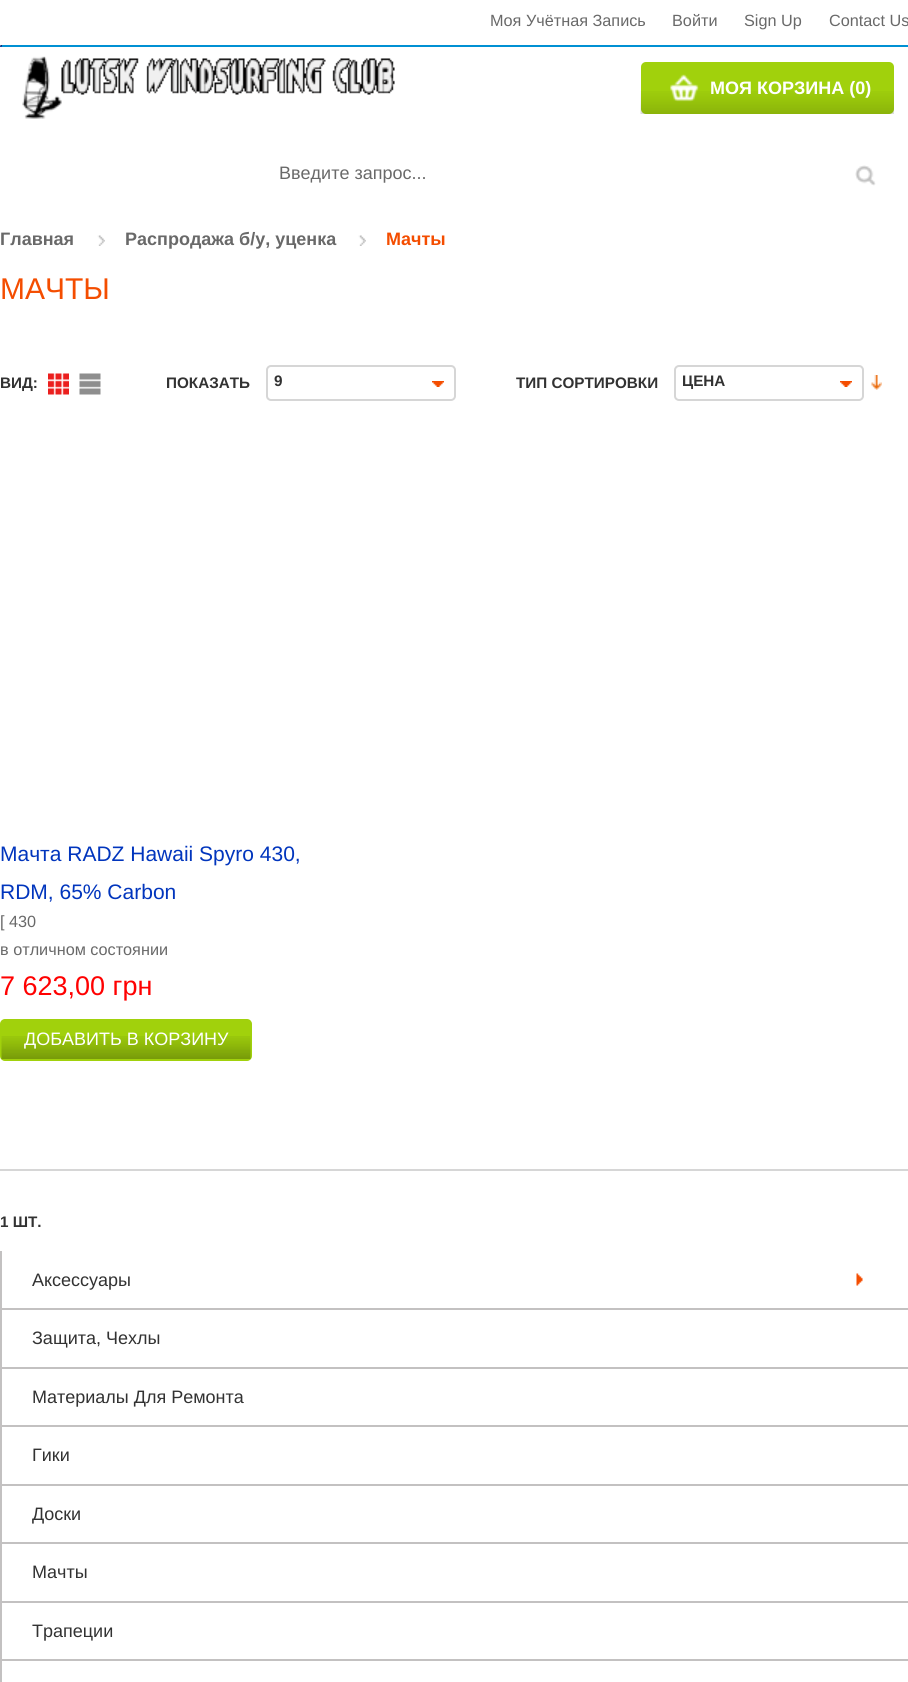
#include <cairo.h>
#include <math.h>
#include <stddef.h>

static cairo_t *ctx;

static void use_color(int r, int g, int b) {
    cairo_set_source_rgb(ctx, r / 255.0, g / 255.0, b / 255.0);
}

static void round_rect(double x, double y, double w, double h, double r) {
    cairo_new_sub_path(ctx);
    cairo_arc(ctx, x + w - r, y + h - r, r, 0, M_PI / 2);
    cairo_arc(ctx, x + r, y + h - r, r, M_PI / 2, M_PI);
    cairo_arc(ctx, x + r, y + r, r, M_PI, 1.5 * M_PI);
    cairo_arc(ctx, x + w - r, y + r, r, 1.5 * M_PI, 2 * M_PI);
    cairo_close_path(ctx);
}

static void picture(const char *path, double x, double y, double w, double h) {
    cairo_surface_t *image = cairo_image_surface_create_from_png(path);
    cairo_save(ctx);
    cairo_set_source_surface(ctx, image, x, y);
    cairo_rectangle(ctx, x, y, w, h);
    cairo_fill(ctx);
    cairo_restore(ctx);
    cairo_surface_destroy(image);
}

int main(void) {
    cairo_surface_t *surface = cairo_image_surface_create(CAIRO_FORMAT_RGB24, 908, 1682);
    ctx = cairo_create(surface);
    cairo_font_options_t *options = cairo_font_options_create();
    cairo_font_options_set_hint_metrics(options, CAIRO_HINT_METRICS_OFF);
    cairo_font_options_set_hint_style(options, CAIRO_HINT_STYLE_NONE);
    cairo_set_font_options(ctx, options);
    cairo_set_miter_limit(ctx, 4);
    use_color(255, 255, 255);
    cairo_paint(ctx);
    cairo_select_font_face(ctx, "Liberation Sans", CAIRO_FONT_SLANT_NORMAL, CAIRO_FONT_WEIGHT_NORMAL);
    cairo_set_font_size(ctx, 16.25);
    use_color(105, 105, 105);
    cairo_move_to(ctx, 490, 26);
    cairo_show_text(ctx, "Моя Учётная Запись");
    cairo_move_to(ctx, 672, 26);
    cairo_show_text(ctx, "Войти");
    cairo_move_to(ctx, 744, 26);
    cairo_show_text(ctx, "Sign Up");
    cairo_move_to(ctx, 829, 26);
    cairo_show_text(ctx, "Contact Us");
    use_color(10, 78, 188);
    cairo_new_path(ctx);
    cairo_move_to(ctx, 1.5, 45);
    cairo_line_to(ctx, 907.5, 45);
    cairo_curve_to(ctx, 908.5, 45, 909, 45.5, 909, 46.5);
    cairo_line_to(ctx, 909, 47);
    cairo_line_to(ctx, 0, 47);
    cairo_line_to(ctx, 0, 46.5);
    cairo_curve_to(ctx, 0, 45.5, 0.5, 45, 1.5, 45);
    cairo_close_path(ctx);
    cairo_fill(ctx);
    picture("img1.png", 0, 45, 2, 2);
    use_color(0, 144, 211);
    cairo_rectangle(ctx, 2, 45, 906, 2);
    cairo_fill(ctx);
    picture("img2.png", 22, 56, 373, 63);
    use_color(161, 209, 12);
    round_rect(641, 62, 253, 52, 5);
    cairo_fill(ctx);
    picture("img3.png", 640, 91, 254, 23);
    picture("img4.png", 670, 74, 29, 28);
    cairo_select_font_face(ctx, "Liberation Sans", CAIRO_FONT_SLANT_NORMAL, CAIRO_FONT_WEIGHT_BOLD);
    cairo_set_font_size(ctx, 18);
    use_color(255, 255, 255);
    cairo_move_to(ctx, 710, 94);
    cairo_show_text(ctx, "МОЯ КОРЗИНА (0)");
    cairo_select_font_face(ctx, "Liberation Sans", CAIRO_FONT_SLANT_NORMAL, CAIRO_FONT_WEIGHT_NORMAL);
    use_color(105, 105, 105);
    cairo_move_to(ctx, 279, 179);
    cairo_show_text(ctx, "Введите запрос...");
    picture("img5.png", 855, 165, 21, 21);
    cairo_select_font_face(ctx, "Liberation Sans", CAIRO_FONT_SLANT_NORMAL, CAIRO_FONT_WEIGHT_BOLD);
    cairo_move_to(ctx, 0, 245);
    cairo_show_text(ctx, "Главная");
    picture("img6.png", 97, 235, 8, 11);
    cairo_move_to(ctx, 125, 245);
    cairo_show_text(ctx, "Распродажа б/у, уценка");
    picture("img7.png", 358, 235, 8, 11);
    use_color(244, 77, 0);
    cairo_move_to(ctx, 386, 245);
    cairo_show_text(ctx, "Мачты");
    cairo_select_font_face(ctx, "Liberation Sans", CAIRO_FONT_SLANT_NORMAL, CAIRO_FONT_WEIGHT_NORMAL);
    cairo_set_font_size(ctx, 30);
    cairo_move_to(ctx, 0, 299);
    cairo_show_text(ctx, "МАЧТЫ");
    cairo_select_font_face(ctx, "Liberation Sans", CAIRO_FONT_SLANT_NORMAL, CAIRO_FONT_WEIGHT_BOLD);
    cairo_set_font_size(ctx, 15.25);
    use_color(50, 50, 50);
    cairo_move_to(ctx, 0, 388);
    cairo_show_text(ctx, "ВИД:");
    picture("img8.png", 48, 373, 21, 22);
    picture("img9.png", 79, 373, 22, 22);
    cairo_move_to(ctx, 166, 388);
    cairo_show_text(ctx, "ПОКАЗАТЬ");
    picture("img10.png", 432, 381, 12, 6);
    round_rect(267, 366, 188, 34, 4);
    use_color(214, 214, 214);
    cairo_stroke(ctx);
    use_color(50, 50, 50);
    cairo_move_to(ctx, 274, 386);
    cairo_show_text(ctx, "9");
    cairo_move_to(ctx, 516, 388);
    cairo_show_text(ctx, "ТИП СОРТИРОВКИ");
    picture("img11.png", 840, 381, 12, 6);
    round_rect(675, 366, 188, 34, 4);
    use_color(214, 214, 214);
    cairo_stroke(ctx);
    use_color(50, 50, 50);
    cairo_move_to(ctx, 682, 386);
    cairo_show_text(ctx, "ЦЕНА");
    picture("img12.png", 871, 375, 11, 15);
    cairo_select_font_face(ctx, "Liberation Sans", CAIRO_FONT_SLANT_NORMAL, CAIRO_FONT_WEIGHT_NORMAL);
    cairo_set_font_size(ctx, 21);
    use_color(1, 53, 189);
    cairo_move_to(ctx, 0, 861);
    cairo_show_text(ctx, "Мачта RADZ Hawaii Spyro 430,");
    cairo_move_to(ctx, 0, 899);
    cairo_show_text(ctx, "RDM, 65% Carbon");
    cairo_set_font_size(ctx, 16.25);
    use_color(105, 105, 105);
    cairo_move_to(ctx, 0, 927);
    cairo_show_text(ctx, "[ 430");
    cairo_move_to(ctx, 0, 955);
    cairo_show_text(ctx, "в отличном состоянии");
    cairo_set_font_size(ctx, 27);
    use_color(255, 1, 1);
    cairo_move_to(ctx, 0, 995);
    cairo_show_text(ctx, "7 623,00 грн");
    use_color(161, 209, 12);
    round_rect(1, 1020, 250, 40, 4);
    cairo_fill_preserve(ctx);
    cairo_stroke(ctx);
    picture("img13.png", 1, 1036, 250, 23);
    picture("img14.png", 1, 1036, 250, 23);
    cairo_set_font_size(ctx, 18);
    use_color(255, 255, 255);
    cairo_move_to(ctx, 24, 1045);
    cairo_show_text(ctx, "ДОБАВИТЬ В КОРЗИНУ");
    use_color(214, 214, 214);
    cairo_rectangle(ctx, 0, 1169, 908, 2);
    cairo_fill(ctx);
    cairo_select_font_face(ctx, "Liberation Sans", CAIRO_FONT_SLANT_NORMAL, CAIRO_FONT_WEIGHT_BOLD);
    cairo_set_font_size(ctx, 15.25);
    use_color(50, 50, 50);
    cairo_move_to(ctx, 0, 1227);
    cairo_show_text(ctx, "1 ШТ.");
    use_color(195, 193, 193);
    cairo_rectangle(ctx, 0, 1251, 2, 431);
    cairo_fill(ctx);
    picture("img15.png", 856, 1273, 7, 13);
    cairo_select_font_face(ctx, "Liberation Sans", CAIRO_FONT_SLANT_NORMAL, CAIRO_FONT_WEIGHT_NORMAL);
    cairo_set_font_size(ctx, 18);
    use_color(50, 50, 50);
    cairo_move_to(ctx, 32, 1286);
    cairo_show_text(ctx, "Аксессуары");
    use_color(195, 193, 193);
    cairo_rectangle(ctx, 2, 1308, 906, 2);
    cairo_fill(ctx);
    use_color(50, 50, 50);
    cairo_move_to(ctx, 32, 1344);
    cairo_show_text(ctx, "Защита, Чехлы");
    use_color(195, 193, 193);
    cairo_rectangle(ctx, 2, 1367, 906, 2);
    cairo_fill(ctx);
    use_color(50, 50, 50);
    cairo_move_to(ctx, 32, 1403);
    cairo_show_text(ctx, "Материалы Для Ремонта");
    use_color(195, 193, 193);
    cairo_rectangle(ctx, 2, 1425, 906, 2);
    cairo_fill(ctx);
    use_color(50, 50, 50);
    cairo_move_to(ctx, 32, 1461);
    cairo_show_text(ctx, "Гики");
    use_color(195, 193, 193);
    cairo_rectangle(ctx, 2, 1484, 906, 2);
    cairo_fill(ctx);
    use_color(50, 50, 50);
    cairo_move_to(ctx, 32, 1520);
    cairo_show_text(ctx, "Доски");
    use_color(195, 193, 193);
    cairo_rectangle(ctx, 2, 1542, 906, 2);
    cairo_fill(ctx);
    use_color(50, 50, 50);
    cairo_move_to(ctx, 32, 1578);
    cairo_show_text(ctx, "Мачты");
    use_color(195, 193, 193);
    cairo_rectangle(ctx, 2, 1601, 906, 2);
    cairo_fill(ctx);
    use_color(50, 50, 50);
    cairo_move_to(ctx, 32, 1637);
    cairo_show_text(ctx, "Трапеции");
    use_color(195, 193, 193);
    cairo_rectangle(ctx, 2, 1659, 906, 2);
    cairo_fill(ctx);
    cairo_surface_write_to_png(surface, "result.png");
    cairo_font_options_destroy(options);
    cairo_destroy(ctx);
    cairo_surface_destroy(surface);
    return 0;
}
